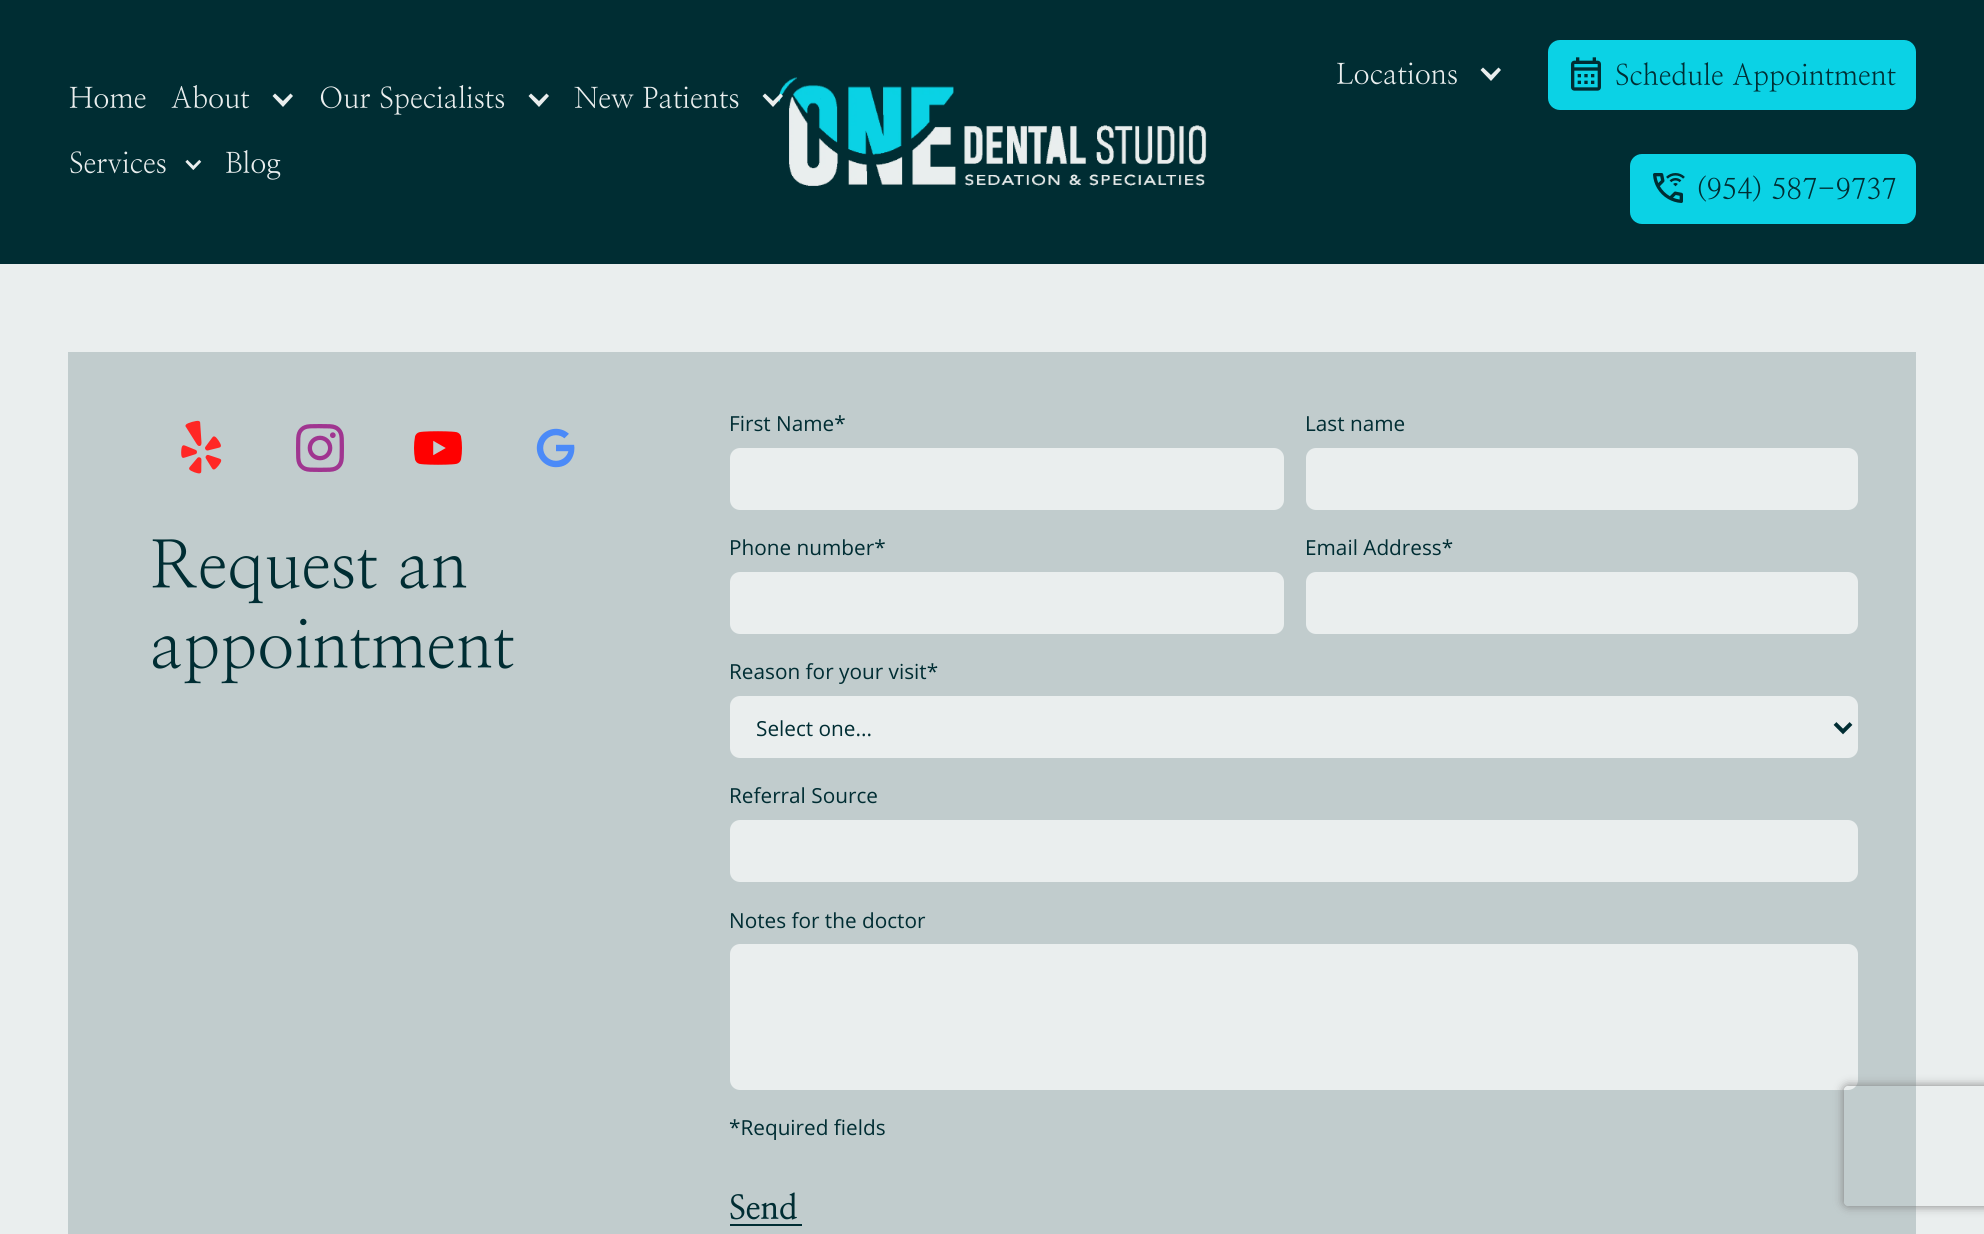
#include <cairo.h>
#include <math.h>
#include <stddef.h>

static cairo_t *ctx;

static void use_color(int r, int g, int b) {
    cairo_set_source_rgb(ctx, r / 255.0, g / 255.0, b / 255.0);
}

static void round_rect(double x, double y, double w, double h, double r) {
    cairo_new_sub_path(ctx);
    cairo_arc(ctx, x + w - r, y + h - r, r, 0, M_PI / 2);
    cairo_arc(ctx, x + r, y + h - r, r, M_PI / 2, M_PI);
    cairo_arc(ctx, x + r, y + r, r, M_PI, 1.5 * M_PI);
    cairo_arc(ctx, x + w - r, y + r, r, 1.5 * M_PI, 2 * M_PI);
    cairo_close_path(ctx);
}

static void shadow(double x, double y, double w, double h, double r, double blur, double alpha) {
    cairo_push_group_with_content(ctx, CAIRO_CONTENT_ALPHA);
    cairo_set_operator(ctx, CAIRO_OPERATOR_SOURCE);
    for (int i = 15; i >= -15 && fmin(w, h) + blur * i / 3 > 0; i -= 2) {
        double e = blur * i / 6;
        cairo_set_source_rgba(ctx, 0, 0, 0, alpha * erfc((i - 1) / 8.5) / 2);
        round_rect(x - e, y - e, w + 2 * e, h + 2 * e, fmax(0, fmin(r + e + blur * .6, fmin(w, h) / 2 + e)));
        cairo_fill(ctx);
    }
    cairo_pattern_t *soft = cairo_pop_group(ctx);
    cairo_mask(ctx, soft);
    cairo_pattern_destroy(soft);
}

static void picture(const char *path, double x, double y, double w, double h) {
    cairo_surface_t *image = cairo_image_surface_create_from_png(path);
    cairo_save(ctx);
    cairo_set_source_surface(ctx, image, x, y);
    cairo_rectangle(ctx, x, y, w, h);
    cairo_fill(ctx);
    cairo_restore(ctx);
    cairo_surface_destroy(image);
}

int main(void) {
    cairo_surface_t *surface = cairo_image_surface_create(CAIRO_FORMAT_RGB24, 1984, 1234);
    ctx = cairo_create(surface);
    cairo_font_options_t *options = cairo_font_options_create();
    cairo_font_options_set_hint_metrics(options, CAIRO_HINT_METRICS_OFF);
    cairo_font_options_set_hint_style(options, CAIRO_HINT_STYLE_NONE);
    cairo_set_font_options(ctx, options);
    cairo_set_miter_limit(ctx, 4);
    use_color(234, 238, 238);
    cairo_paint(ctx);
    use_color(0, 45, 51);
    cairo_rectangle(ctx, 0, 0, 1984, 264);
    cairo_fill(ctx);
    cairo_select_font_face(ctx, "NanumMyeongjo", CAIRO_FONT_SLANT_NORMAL, CAIRO_FONT_WEIGHT_NORMAL);
    cairo_set_font_size(ctx, 28.75);
    use_color(234, 238, 238);
    cairo_move_to(ctx, 69, 108);
    cairo_show_text(ctx, "Home");
    cairo_move_to(ctx, 171, 108);
    cairo_show_text(ctx, "About");
    cairo_new_path(ctx);
    cairo_move_to(ctx, 290.5, 93.5);
    cairo_line_to(ctx, 283, 101);
    cairo_line_to(ctx, 275, 93.5);
    cairo_line_to(ctx, 272.5, 96);
    cairo_line_to(ctx, 283, 107);
    cairo_line_to(ctx, 293, 96);
    cairo_close_path(ctx);
    cairo_fill(ctx);
    cairo_move_to(ctx, 319, 108);
    cairo_show_text(ctx, "Our Specialists");
    cairo_new_path(ctx);
    cairo_move_to(ctx, 546.5, 93.5);
    cairo_line_to(ctx, 539, 101);
    cairo_line_to(ctx, 531, 93.5);
    cairo_line_to(ctx, 528.5, 96);
    cairo_line_to(ctx, 539, 107);
    cairo_line_to(ctx, 549, 96);
    cairo_close_path(ctx);
    cairo_fill(ctx);
    cairo_move_to(ctx, 574, 108);
    cairo_show_text(ctx, "New Patients");
    picture("img4.png", 778, 77, 429, 109);
    cairo_new_path(ctx);
    cairo_move_to(ctx, 780.5, 93.5);
    cairo_line_to(ctx, 773, 101);
    cairo_line_to(ctx, 765, 93.5);
    cairo_line_to(ctx, 762.5, 96);
    cairo_line_to(ctx, 773, 107);
    cairo_line_to(ctx, 783, 96);
    cairo_close_path(ctx);
    cairo_fill(ctx);
    cairo_move_to(ctx, 69, 173);
    cairo_show_text(ctx, "Services");
    picture("img1.png", 185, 159, 17, 11);
    cairo_move_to(ctx, 225, 173);
    cairo_show_text(ctx, "Blog");
    cairo_move_to(ctx, 1336, 84);
    cairo_show_text(ctx, "Locations");
    cairo_new_path(ctx);
    cairo_move_to(ctx, 1498.5, 67.5);
    cairo_line_to(ctx, 1491, 75);
    cairo_line_to(ctx, 1483, 67.5);
    cairo_line_to(ctx, 1480.5, 70);
    cairo_line_to(ctx, 1491, 81);
    cairo_line_to(ctx, 1501, 70);
    cairo_close_path(ctx);
    cairo_fill(ctx);
    use_color(11, 210, 229);
    round_rect(1548, 40, 368, 70, 12);
    cairo_fill(ctx);
    picture("img2.png", 1571, 57, 30, 34);
    cairo_set_font_size(ctx, 28.5);
    use_color(0, 45, 51);
    cairo_move_to(ctx, 1615, 85);
    cairo_show_text(ctx, "Schedule Appointment");
    use_color(11, 210, 229);
    round_rect(1630, 154, 286, 70, 12);
    cairo_fill(ctx);
    picture("img3.png", 1653, 173, 32, 30);
    use_color(0, 45, 51);
    cairo_move_to(ctx, 1696, 199);
    cairo_show_text(ctx, "(954) 587-9737");
    use_color(193, 204, 205);
    cairo_rectangle(ctx, 68, 352, 1848, 882);
    cairo_fill(ctx);
    picture("img5.png", 181, 420, 41, 54);
    picture("img6.png", 296, 424, 48, 48);
    picture("img7.png", 414, 431, 48, 34);
    picture("img8.png", 536, 428, 39, 40);
    cairo_set_font_size(ctx, 66);
    use_color(0, 45, 51);
    cairo_move_to(ctx, 150, 588);
    cairo_show_text(ctx, "Request an");
    cairo_move_to(ctx, 150, 668);
    cairo_show_text(ctx, "appointment");
    cairo_select_font_face(ctx, "Open Sans", CAIRO_FONT_SLANT_NORMAL, CAIRO_FONT_WEIGHT_NORMAL);
    cairo_set_font_size(ctx, 20.75);
    cairo_move_to(ctx, 729, 431);
    cairo_show_text(ctx, "First Name*");
    use_color(234, 238, 238);
    round_rect(730, 448, 554, 62, 10);
    cairo_fill(ctx);
    use_color(0, 45, 51);
    cairo_move_to(ctx, 1305, 431);
    cairo_show_text(ctx, "Last name");
    use_color(234, 238, 238);
    round_rect(1306, 448, 552, 62, 10);
    cairo_fill(ctx);
    use_color(0, 45, 51);
    cairo_move_to(ctx, 729, 555);
    cairo_show_text(ctx, "Phone number*");
    use_color(234, 238, 238);
    round_rect(730, 572, 554, 62, 10);
    cairo_fill(ctx);
    use_color(0, 45, 51);
    cairo_move_to(ctx, 1305, 555);
    cairo_show_text(ctx, "Email Address*");
    use_color(234, 238, 238);
    round_rect(1306, 572, 552, 62, 10);
    cairo_fill(ctx);
    use_color(0, 45, 51);
    cairo_move_to(ctx, 729, 679);
    cairo_show_text(ctx, "Reason for your visit*");
    use_color(234, 238, 238);
    round_rect(730, 696, 1128, 62, 10);
    cairo_fill(ctx);
    cairo_new_path(ctx);
    cairo_move_to(ctx, 1835, 723.5);
    cairo_line_to(ctx, 1843, 731.5);
    cairo_line_to(ctx, 1851, 723.5);
    use_color(0, 45, 51);
    cairo_set_line_width(ctx, 4);
    cairo_stroke(ctx);
    cairo_move_to(ctx, 756, 736);
    cairo_show_text(ctx, "Select one...");
    cairo_move_to(ctx, 729, 803);
    cairo_show_text(ctx, "Referral Source");
    use_color(234, 238, 238);
    round_rect(730, 820, 1128, 62, 10);
    cairo_fill(ctx);
    use_color(0, 45, 51);
    cairo_move_to(ctx, 729, 928);
    cairo_show_text(ctx, "Notes for the doctor");
    use_color(234, 238, 238);
    round_rect(730, 944, 1128, 146, 10);
    cairo_fill(ctx);
    use_color(0, 45, 51);
    cairo_move_to(ctx, 729, 1135);
    cairo_show_text(ctx, "*Required fields");
    cairo_rectangle(ctx, 730, 1224, 72, 2);
    cairo_fill(ctx);
    cairo_select_font_face(ctx, "NanumMyeongjo", CAIRO_FONT_SLANT_NORMAL, CAIRO_FONT_WEIGHT_BOLD);
    cairo_set_font_size(ctx, 33);
    cairo_move_to(ctx, 729, 1219);
    cairo_show_text(ctx, "Send");
    cairo_save(ctx);
    cairo_set_fill_rule(ctx, CAIRO_FILL_RULE_EVEN_ODD);
    cairo_new_path(ctx);
    cairo_move_to(ctx, 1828, 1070);
    cairo_line_to(ctx, 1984, 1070);
    cairo_line_to(ctx, 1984, 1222);
    cairo_line_to(ctx, 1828, 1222);
    cairo_close_path(ctx);
    cairo_move_to(ctx, 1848, 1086);
    cairo_line_to(ctx, 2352, 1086);
    cairo_curve_to(ctx, 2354, 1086, 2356, 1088, 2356, 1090);
    cairo_line_to(ctx, 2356, 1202);
    cairo_curve_to(ctx, 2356, 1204, 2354, 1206, 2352, 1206);
    cairo_line_to(ctx, 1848, 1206);
    cairo_curve_to(ctx, 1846, 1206, 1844, 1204, 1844, 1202);
    cairo_line_to(ctx, 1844, 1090);
    cairo_curve_to(ctx, 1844, 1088, 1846, 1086, 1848, 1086);
    cairo_close_path(ctx);
    cairo_clip(ctx);
    use_color(128, 128, 128);
    shadow(1844, 1086, 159, 120, 4, 5, 1);
    cairo_restore(ctx);
    cairo_surface_write_to_png(surface, "result.png");
    cairo_font_options_destroy(options);
    cairo_destroy(ctx);
    cairo_surface_destroy(surface);
    return 0;
}
